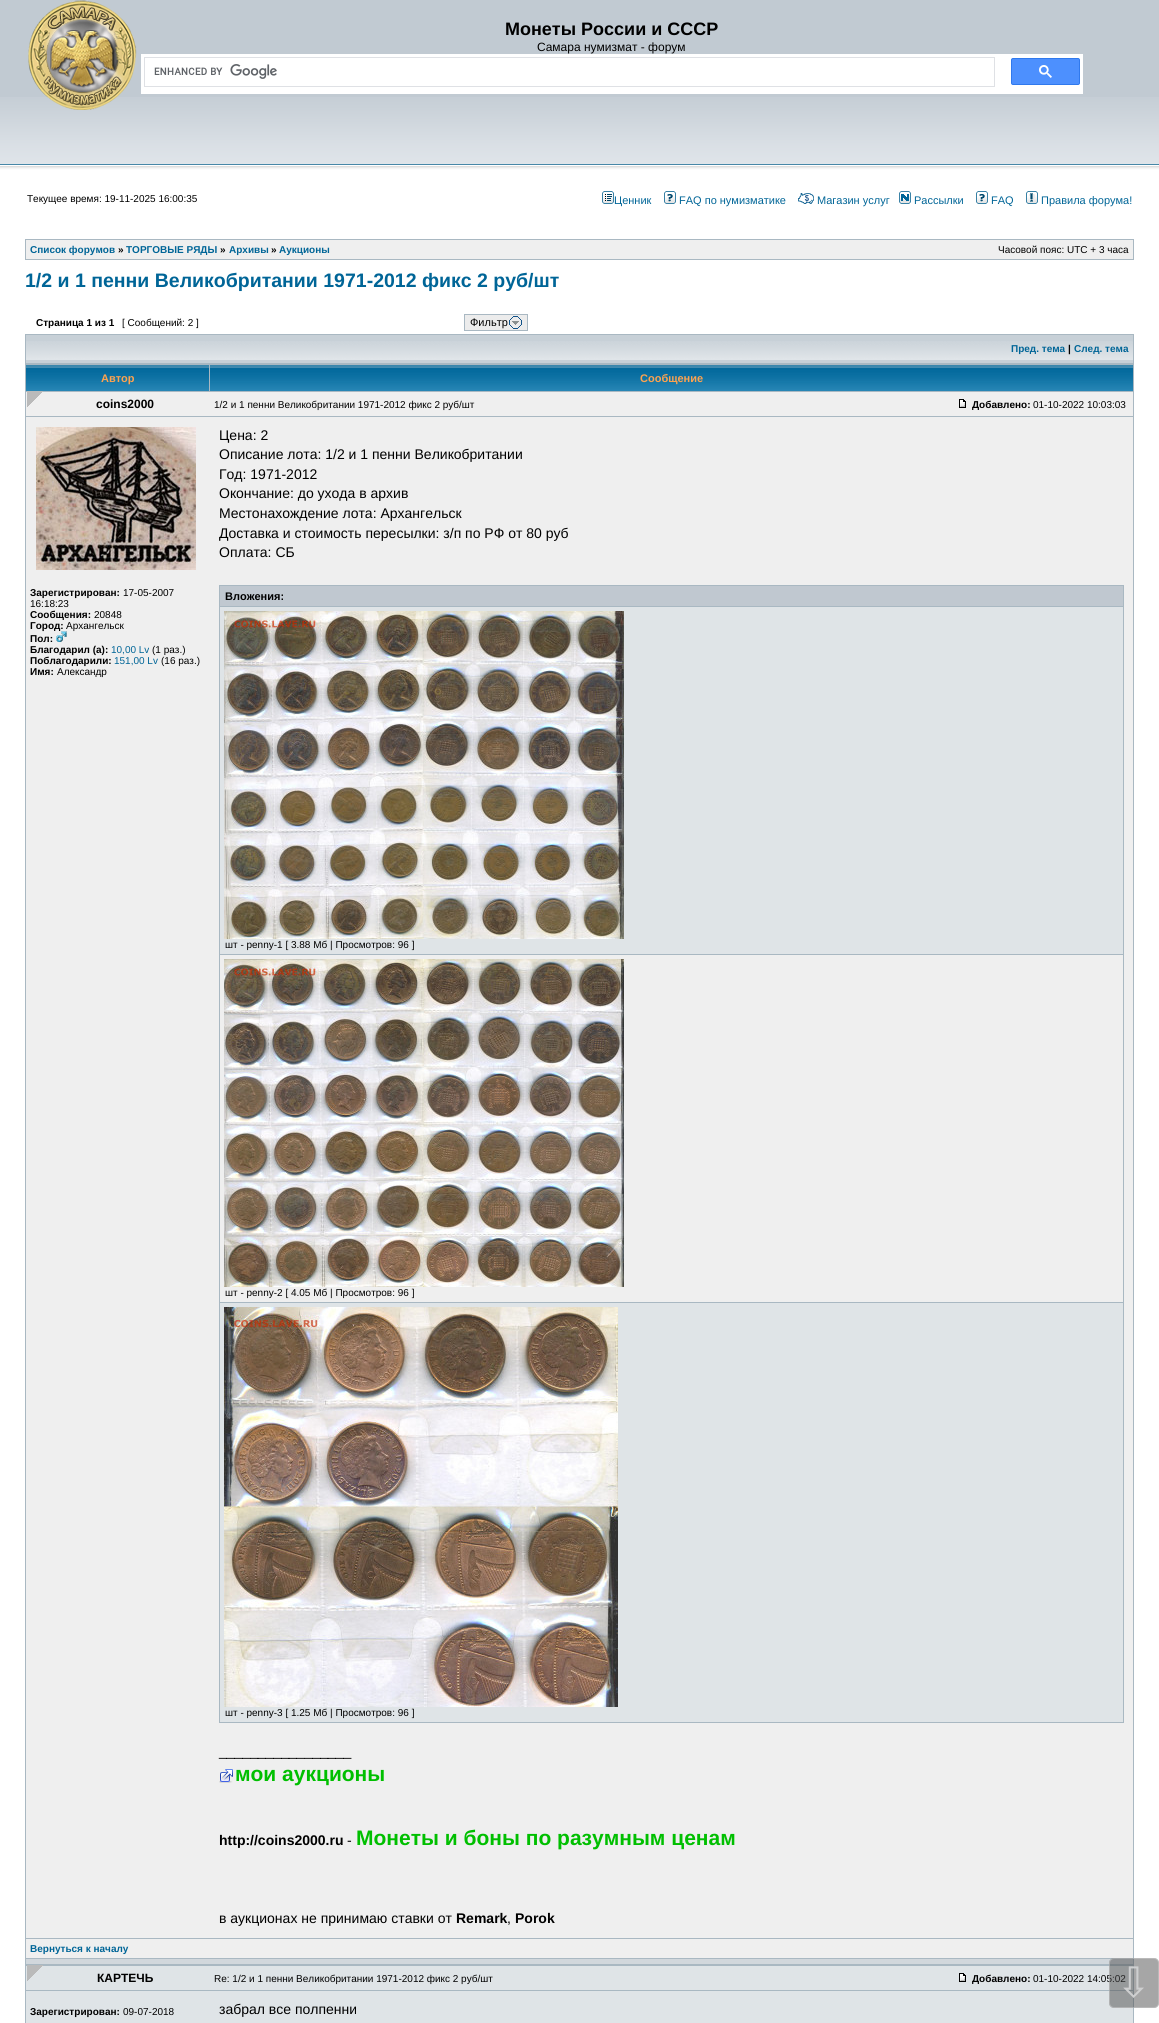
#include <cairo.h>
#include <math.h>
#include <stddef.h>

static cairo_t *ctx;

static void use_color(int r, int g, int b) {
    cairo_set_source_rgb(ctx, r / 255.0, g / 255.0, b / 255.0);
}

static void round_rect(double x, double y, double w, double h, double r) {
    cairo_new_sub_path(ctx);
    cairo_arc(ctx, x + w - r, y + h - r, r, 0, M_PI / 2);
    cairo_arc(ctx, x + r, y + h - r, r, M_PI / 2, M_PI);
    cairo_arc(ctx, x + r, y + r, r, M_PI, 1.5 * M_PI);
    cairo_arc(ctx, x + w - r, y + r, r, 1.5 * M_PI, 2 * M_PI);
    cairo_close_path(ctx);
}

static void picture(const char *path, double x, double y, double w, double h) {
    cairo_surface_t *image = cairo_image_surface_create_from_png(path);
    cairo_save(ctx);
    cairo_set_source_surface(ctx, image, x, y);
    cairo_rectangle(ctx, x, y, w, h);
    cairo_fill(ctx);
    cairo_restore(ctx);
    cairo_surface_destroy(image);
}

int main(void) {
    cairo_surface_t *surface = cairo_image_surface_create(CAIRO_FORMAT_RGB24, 1159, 2023);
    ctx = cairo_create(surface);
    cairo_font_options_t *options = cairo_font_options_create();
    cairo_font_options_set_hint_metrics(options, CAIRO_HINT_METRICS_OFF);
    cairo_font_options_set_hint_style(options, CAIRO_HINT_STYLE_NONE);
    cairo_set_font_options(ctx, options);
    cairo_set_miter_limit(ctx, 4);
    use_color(255, 255, 255);
    cairo_paint(ctx);
    use_color(193, 202, 210);
    cairo_rectangle(ctx, 0, 0, 1159, 97);
    cairo_fill(ctx);
    picture("img1.png", 0, 97, 1159, 78);
    picture("img2.png", 28, 0, 109, 110);
    cairo_select_font_face(ctx, "Liberation Sans", CAIRO_FONT_SLANT_NORMAL, CAIRO_FONT_WEIGHT_BOLD);
    cairo_set_font_size(ctx, 18);
    use_color(0, 0, 0);
    cairo_move_to(ctx, 505, 35);
    cairo_show_text(ctx, "Монеты России и СССР");
    cairo_select_font_face(ctx, "Liberation Sans", CAIRO_FONT_SLANT_NORMAL, CAIRO_FONT_WEIGHT_NORMAL);
    cairo_set_font_size(ctx, 12);
    cairo_move_to(ctx, 537, 51);
    cairo_show_text(ctx, "Самара нумизмат - форум");
    use_color(255, 255, 255);
    cairo_rectangle(ctx, 141, 54, 942, 40);
    cairo_fill(ctx);
    cairo_rectangle(ctx, 144.5, 57.5, 850, 29);
    use_color(223, 225, 229);
    cairo_set_line_width(ctx, 1);
    cairo_stroke(ctx);
    picture("img3.png", 154, 64, 123, 15);
    use_color(77, 144, 254);
    round_rect(1011.5, 58.5, 68, 26, 1.5);
    cairo_fill_preserve(ctx);
    use_color(48, 121, 237);
    cairo_stroke(ctx);
    picture("img4.png", 1039, 65, 13, 13);
    cairo_set_font_size(ctx, 10);
    use_color(0, 0, 0);
    cairo_move_to(ctx, 27, 202);
    cairo_show_text(ctx, "Текущее время: 19-11-2025 16:00:35");
    picture("img5.png", 602, 191, 12, 13);
    cairo_set_font_size(ctx, 11);
    use_color(0, 101, 151);
    cairo_move_to(ctx, 614, 204);
    cairo_show_text(ctx, "Ценник");
    picture("img6.png", 664, 191, 12, 13);
    cairo_move_to(ctx, 679, 204);
    cairo_show_text(ctx, "FAQ по нумизматике");
    picture("img7.png", 798, 193, 16, 11);
    cairo_move_to(ctx, 817, 204);
    cairo_show_text(ctx, "Магазин услуг");
    picture("img8.png", 899, 191, 12, 13);
    cairo_move_to(ctx, 914, 204);
    cairo_show_text(ctx, "Рассылки");
    picture("img6.png", 976, 191, 12, 13);
    cairo_move_to(ctx, 991, 204);
    cairo_show_text(ctx, "FAQ");
    picture("img9.png", 1026, 191, 12, 13);
    cairo_move_to(ctx, 1041, 204);
    cairo_show_text(ctx, "Правила форума!");
    use_color(169, 184, 194);
    cairo_rectangle(ctx, 25, 239, 1109, 21);
    cairo_fill(ctx);
    use_color(239, 239, 239);
    cairo_rectangle(ctx, 26, 240, 1107, 19);
    cairo_fill(ctx);
    cairo_select_font_face(ctx, "Liberation Sans", CAIRO_FONT_SLANT_NORMAL, CAIRO_FONT_WEIGHT_BOLD);
    cairo_set_font_size(ctx, 10);
    use_color(0, 101, 151);
    cairo_move_to(ctx, 30, 253);
    cairo_show_text(ctx, "Список форумов");
    use_color(0, 0, 0);
    cairo_move_to(ctx, 118, 253);
    cairo_show_text(ctx, "»");
    use_color(0, 101, 151);
    cairo_move_to(ctx, 126, 253);
    cairo_show_text(ctx, "ТОРГОВЫЕ РЯДЫ");
    use_color(0, 0, 0);
    cairo_move_to(ctx, 220, 253);
    cairo_show_text(ctx, "»");
    use_color(0, 101, 151);
    cairo_move_to(ctx, 229, 253);
    cairo_show_text(ctx, "Архивы");
    use_color(0, 0, 0);
    cairo_move_to(ctx, 271, 253);
    cairo_show_text(ctx, "»");
    use_color(0, 101, 151);
    cairo_move_to(ctx, 279, 253);
    cairo_show_text(ctx, "Аукционы");
    cairo_select_font_face(ctx, "Liberation Sans", CAIRO_FONT_SLANT_NORMAL, CAIRO_FONT_WEIGHT_NORMAL);
    use_color(0, 0, 0);
    cairo_move_to(ctx, 998, 253);
    cairo_show_text(ctx, "Часовой пояс: UTC + 3 часа");
    cairo_select_font_face(ctx, "Liberation Sans", CAIRO_FONT_SLANT_NORMAL, CAIRO_FONT_WEIGHT_BOLD);
    cairo_set_font_size(ctx, 19.5);
    use_color(0, 101, 151);
    cairo_move_to(ctx, 25, 287);
    cairo_show_text(ctx, "1/2 и 1 пенни Великобритании 1971-2012 фикс 2 руб/шт");
    cairo_set_font_size(ctx, 10);
    use_color(0, 0, 0);
    cairo_move_to(ctx, 36, 326);
    cairo_show_text(ctx, "Страница 1 из 1");
    cairo_select_font_face(ctx, "Liberation Sans", CAIRO_FONT_SLANT_NORMAL, CAIRO_FONT_WEIGHT_NORMAL);
    cairo_move_to(ctx, 122, 326);
    cairo_show_text(ctx, "[ Сообщений: 2 ]");
    use_color(236, 236, 236);
    cairo_rectangle(ctx, 464.5, 314.5, 63, 16);
    cairo_fill_preserve(ctx);
    use_color(169, 184, 194);
    cairo_stroke(ctx);
    cairo_set_font_size(ctx, 11);
    use_color(0, 0, 0);
    cairo_move_to(ctx, 470, 326);
    cairo_show_text(ctx, "Фильтр");
    picture("img10.png", 509, 316, 13, 13);
    use_color(169, 184, 194);
    cairo_rectangle(ctx, 25, 334, 1109, 1689);
    cairo_fill(ctx);
    use_color(199, 208, 215);
    cairo_rectangle(ctx, 26, 335, 1107, 28);
    cairo_fill(ctx);
    picture("img11.png", 26, 341, 1107, 19);
    cairo_select_font_face(ctx, "Liberation Sans", CAIRO_FONT_SLANT_NORMAL, CAIRO_FONT_WEIGHT_BOLD);
    cairo_set_font_size(ctx, 10);
    use_color(0, 101, 151);
    cairo_move_to(ctx, 1011, 352);
    cairo_show_text(ctx, "Пред. тема");
    use_color(0, 0, 0);
    cairo_move_to(ctx, 1068, 352);
    cairo_show_text(ctx, "|");
    use_color(0, 101, 151);
    cairo_move_to(ctx, 1074, 352);
    cairo_show_text(ctx, "След. тема");
    picture("img12.png", 26, 365, 183, 26);
    cairo_set_font_size(ctx, 11);
    use_color(255, 163, 79);
    cairo_move_to(ctx, 101, 382);
    cairo_show_text(ctx, "Автор");
    picture("img13.png", 210, 365, 923, 26);
    cairo_move_to(ctx, 640, 382);
    cairo_show_text(ctx, "Сообщение");
    use_color(239, 239, 239);
    cairo_rectangle(ctx, 26, 392, 1107, 24);
    cairo_fill(ctx);
    picture("img14.png", 27, 391, 16, 16);
    cairo_set_font_size(ctx, 12);
    use_color(0, 0, 0);
    cairo_move_to(ctx, 96, 408);
    cairo_show_text(ctx, "coins2000");
    cairo_select_font_face(ctx, "Liberation Sans", CAIRO_FONT_SLANT_NORMAL, CAIRO_FONT_WEIGHT_NORMAL);
    cairo_set_font_size(ctx, 10);
    cairo_move_to(ctx, 214, 408);
    cairo_show_text(ctx, "1/2 и 1 пенни Великобритании 1971-2012 фикс 2 руб/шт");
    picture("img15.png", 959, 399, 7, 9);
    cairo_select_font_face(ctx, "Liberation Sans", CAIRO_FONT_SLANT_NORMAL, CAIRO_FONT_WEIGHT_BOLD);
    cairo_move_to(ctx, 972, 408);
    cairo_show_text(ctx, "Добавлено:");
    cairo_select_font_face(ctx, "Liberation Sans", CAIRO_FONT_SLANT_NORMAL, CAIRO_FONT_WEIGHT_NORMAL);
    cairo_move_to(ctx, 1033, 408);
    cairo_show_text(ctx, "01-10-2022 10:03:03");
    use_color(239, 239, 239);
    cairo_rectangle(ctx, 26, 417, 1107, 1521);
    cairo_fill(ctx);
    picture("img16.png", 36, 427, 160, 143);
    cairo_select_font_face(ctx, "Liberation Sans", CAIRO_FONT_SLANT_NORMAL, CAIRO_FONT_WEIGHT_BOLD);
    use_color(0, 0, 0);
    cairo_move_to(ctx, 30, 596);
    cairo_show_text(ctx, "Зарегистрирован:");
    cairo_select_font_face(ctx, "Liberation Sans", CAIRO_FONT_SLANT_NORMAL, CAIRO_FONT_WEIGHT_NORMAL);
    cairo_move_to(ctx, 123, 596);
    cairo_show_text(ctx, "17-05-2007");
    cairo_move_to(ctx, 30, 607);
    cairo_show_text(ctx, "16:18:23");
    cairo_select_font_face(ctx, "Liberation Sans", CAIRO_FONT_SLANT_NORMAL, CAIRO_FONT_WEIGHT_BOLD);
    cairo_move_to(ctx, 30, 618);
    cairo_show_text(ctx, "Сообщения:");
    cairo_select_font_face(ctx, "Liberation Sans", CAIRO_FONT_SLANT_NORMAL, CAIRO_FONT_WEIGHT_NORMAL);
    cairo_move_to(ctx, 94, 618);
    cairo_show_text(ctx, "20848");
    cairo_select_font_face(ctx, "Liberation Sans", CAIRO_FONT_SLANT_NORMAL, CAIRO_FONT_WEIGHT_BOLD);
    cairo_move_to(ctx, 30, 629);
    cairo_show_text(ctx, "Город:");
    cairo_select_font_face(ctx, "Liberation Sans", CAIRO_FONT_SLANT_NORMAL, CAIRO_FONT_WEIGHT_NORMAL);
    cairo_move_to(ctx, 66, 629);
    cairo_show_text(ctx, "Архангельск");
    cairo_select_font_face(ctx, "Liberation Sans", CAIRO_FONT_SLANT_NORMAL, CAIRO_FONT_WEIGHT_BOLD);
    cairo_move_to(ctx, 30, 642);
    cairo_show_text(ctx, "Пол:");
    picture("img17.png", 56, 631, 11, 11);
    cairo_move_to(ctx, 30, 653);
    cairo_show_text(ctx, "Благодарил (а):");
    cairo_select_font_face(ctx, "Liberation Sans", CAIRO_FONT_SLANT_NORMAL, CAIRO_FONT_WEIGHT_NORMAL);
    use_color(0, 101, 151);
    cairo_move_to(ctx, 111, 653);
    cairo_show_text(ctx, "10,00 Lv");
    use_color(0, 0, 0);
    cairo_move_to(ctx, 152, 653);
    cairo_show_text(ctx, "(1 раз.)");
    cairo_select_font_face(ctx, "Liberation Sans", CAIRO_FONT_SLANT_NORMAL, CAIRO_FONT_WEIGHT_BOLD);
    cairo_move_to(ctx, 30, 664);
    cairo_show_text(ctx, "Поблагодарили:");
    cairo_select_font_face(ctx, "Liberation Sans", CAIRO_FONT_SLANT_NORMAL, CAIRO_FONT_WEIGHT_NORMAL);
    use_color(0, 101, 151);
    cairo_move_to(ctx, 114, 664);
    cairo_show_text(ctx, "151,00 Lv");
    use_color(0, 0, 0);
    cairo_move_to(ctx, 161, 664);
    cairo_show_text(ctx, "(16 раз.)");
    cairo_select_font_face(ctx, "Liberation Sans", CAIRO_FONT_SLANT_NORMAL, CAIRO_FONT_WEIGHT_BOLD);
    cairo_move_to(ctx, 30, 675);
    cairo_show_text(ctx, "Имя:");
    cairo_select_font_face(ctx, "Liberation Sans", CAIRO_FONT_SLANT_NORMAL, CAIRO_FONT_WEIGHT_NORMAL);
    cairo_move_to(ctx, 57, 675);
    cairo_show_text(ctx, "Александр");
    cairo_set_font_size(ctx, 14);
    cairo_move_to(ctx, 219, 440);
    cairo_show_text(ctx, "Цена: 2");
    cairo_move_to(ctx, 219, 459);
    cairo_show_text(ctx, "Описание лота: 1/2 и 1 пенни Великобритании");
    cairo_move_to(ctx, 219, 479);
    cairo_show_text(ctx, "Год: 1971-2012");
    cairo_move_to(ctx, 219, 498);
    cairo_show_text(ctx, "Окончание: до ухода в архив");
    cairo_move_to(ctx, 219, 518);
    cairo_show_text(ctx, "Местонахождение лота: Архангельск");
    cairo_move_to(ctx, 219, 538);
    cairo_show_text(ctx, "Доставка и стоимость пересылки: з/п по РФ от 80 руб");
    cairo_move_to(ctx, 219, 557);
    cairo_show_text(ctx, "Оплата: СБ");
    use_color(169, 184, 194);
    cairo_rectangle(ctx, 219, 585, 905, 1138);
    cairo_fill(ctx);
    use_color(192, 200, 208);
    cairo_rectangle(ctx, 220, 586, 903, 20);
    cairo_fill(ctx);
    cairo_select_font_face(ctx, "Liberation Sans", CAIRO_FONT_SLANT_NORMAL, CAIRO_FONT_WEIGHT_BOLD);
    cairo_set_font_size(ctx, 11);
    use_color(0, 0, 0);
    cairo_move_to(ctx, 225, 600);
    cairo_show_text(ctx, "Вложения:");
    use_color(223, 228, 231);
    cairo_rectangle(ctx, 220, 607, 903, 347);
    cairo_fill(ctx);
    picture("img18.png", 224, 611, 400, 328);
    cairo_select_font_face(ctx, "Liberation Sans", CAIRO_FONT_SLANT_NORMAL, CAIRO_FONT_WEIGHT_NORMAL);
    cairo_set_font_size(ctx, 10);
    use_color(0, 0, 0);
    cairo_move_to(ctx, 225, 948);
    cairo_show_text(ctx, "шт - penny-1 [ 3.88 Мб | Просмотров: 96 ]");
    use_color(239, 239, 239);
    cairo_rectangle(ctx, 220, 955, 903, 347);
    cairo_fill(ctx);
    picture("img19.png", 224, 959, 400, 328);
    use_color(0, 0, 0);
    cairo_move_to(ctx, 225, 1296);
    cairo_show_text(ctx, "шт - penny-2 [ 4.05 Мб | Просмотров: 96 ]");
    use_color(223, 228, 231);
    cairo_rectangle(ctx, 220, 1303, 903, 419);
    cairo_fill(ctx);
    picture("img20.png", 224, 1307, 394, 400);
    use_color(0, 0, 0);
    cairo_move_to(ctx, 225, 1716);
    cairo_show_text(ctx, "шт - penny-3 [ 1.25 Мб | Просмотров: 96 ]");
    cairo_set_font_size(ctx, 14);
    cairo_move_to(ctx, 219, 1756);
    cairo_show_text(ctx, "_________________");
    picture("img21.png", 219, 1769, 14, 14);
    cairo_select_font_face(ctx, "Liberation Sans", CAIRO_FONT_SLANT_NORMAL, CAIRO_FONT_WEIGHT_BOLD);
    cairo_set_font_size(ctx, 21);
    use_color(0, 191, 0);
    cairo_move_to(ctx, 235, 1781);
    cairo_show_text(ctx, "мои аукционы");
    cairo_set_font_size(ctx, 14);
    use_color(0, 0, 0);
    cairo_move_to(ctx, 219, 1845);
    cairo_show_text(ctx, "http://coins2000.ru");
    cairo_select_font_face(ctx, "Liberation Sans", CAIRO_FONT_SLANT_NORMAL, CAIRO_FONT_WEIGHT_NORMAL);
    cairo_move_to(ctx, 347, 1845);
    cairo_show_text(ctx, "-");
    cairo_select_font_face(ctx, "Liberation Sans", CAIRO_FONT_SLANT_NORMAL, CAIRO_FONT_WEIGHT_BOLD);
    cairo_set_font_size(ctx, 21);
    use_color(0, 191, 0);
    cairo_move_to(ctx, 356, 1845);
    cairo_show_text(ctx, "Монеты и боны по разумным ценам");
    cairo_select_font_face(ctx, "Liberation Sans", CAIRO_FONT_SLANT_NORMAL, CAIRO_FONT_WEIGHT_NORMAL);
    cairo_set_font_size(ctx, 14);
    use_color(0, 0, 0);
    cairo_move_to(ctx, 219, 1923);
    cairo_show_text(ctx, "в аукционах не принимаю ставки от");
    cairo_select_font_face(ctx, "Liberation Sans", CAIRO_FONT_SLANT_NORMAL, CAIRO_FONT_WEIGHT_BOLD);
    cairo_move_to(ctx, 456, 1923);
    cairo_show_text(ctx, "Remark");
    cairo_select_font_face(ctx, "Liberation Sans", CAIRO_FONT_SLANT_NORMAL, CAIRO_FONT_WEIGHT_NORMAL);
    cairo_move_to(ctx, 507, 1923);
    cairo_show_text(ctx, ",");
    cairo_select_font_face(ctx, "Liberation Sans", CAIRO_FONT_SLANT_NORMAL, CAIRO_FONT_WEIGHT_BOLD);
    cairo_move_to(ctx, 515, 1923);
    cairo_show_text(ctx, "Porok");
    use_color(239, 239, 239);
    cairo_rectangle(ctx, 26, 1939, 1107, 19);
    cairo_fill(ctx);
    cairo_set_font_size(ctx, 10);
    use_color(0, 101, 151);
    cairo_move_to(ctx, 30, 1952);
    cairo_show_text(ctx, "Вернуться к началу");
    use_color(209, 215, 220);
    cairo_rectangle(ctx, 26, 1959, 1107, 5);
    cairo_fill(ctx);
    use_color(223, 228, 231);
    cairo_rectangle(ctx, 26, 1966, 1107, 24);
    cairo_fill(ctx);
    picture("img22.png", 27, 1965, 16, 16);
    cairo_set_font_size(ctx, 12);
    use_color(0, 0, 0);
    cairo_move_to(ctx, 97, 1982);
    cairo_show_text(ctx, "КАРТЕЧЬ");
    cairo_select_font_face(ctx, "Liberation Sans", CAIRO_FONT_SLANT_NORMAL, CAIRO_FONT_WEIGHT_NORMAL);
    cairo_set_font_size(ctx, 10);
    cairo_move_to(ctx, 214, 1982);
    cairo_show_text(ctx, "Re: 1/2 и 1 пенни Великобритании 1971-2012 фикс 2 руб/шт");
    picture("img23.png", 959, 1973, 7, 9);
    cairo_select_font_face(ctx, "Liberation Sans", CAIRO_FONT_SLANT_NORMAL, CAIRO_FONT_WEIGHT_BOLD);
    cairo_move_to(ctx, 972, 1982);
    cairo_show_text(ctx, "Добавлено:");
    cairo_select_font_face(ctx, "Liberation Sans", CAIRO_FONT_SLANT_NORMAL, CAIRO_FONT_WEIGHT_NORMAL);
    cairo_move_to(ctx, 1033, 1982);
    cairo_show_text(ctx, "01-10-2022 14:05:02");
    use_color(223, 228, 231);
    cairo_rectangle(ctx, 26, 1991, 1107, 32);
    cairo_fill(ctx);
    cairo_select_font_face(ctx, "Liberation Sans", CAIRO_FONT_SLANT_NORMAL, CAIRO_FONT_WEIGHT_BOLD);
    use_color(0, 0, 0);
    cairo_move_to(ctx, 30, 2015);
    cairo_show_text(ctx, "Зарегистрирован:");
    cairo_select_font_face(ctx, "Liberation Sans", CAIRO_FONT_SLANT_NORMAL, CAIRO_FONT_WEIGHT_NORMAL);
    cairo_move_to(ctx, 123, 2015);
    cairo_show_text(ctx, "09-07-2018");
    cairo_set_font_size(ctx, 14);
    cairo_move_to(ctx, 219, 2014);
    cairo_show_text(ctx, "забрал все полпенни");
    cairo_set_source_rgba(ctx, 0.31, 0.31, 0.31, 0.5);
    round_rect(1109, 1958, 50, 50, 5);
    cairo_fill(ctx);
    round_rect(1109.5, 1958.5, 49, 49, 4.5);
    cairo_set_source_rgba(ctx, 0.8, 0.8, 0.8, 0.5);
    cairo_stroke(ctx);
    cairo_select_font_face(ctx, "DejaVu Sans", CAIRO_FONT_SLANT_NORMAL, CAIRO_FONT_WEIGHT_NORMAL);
    cairo_set_font_size(ctx, 42);
    use_color(206, 207, 208);
    cairo_move_to(ctx, 1116, 1997);
    cairo_show_text(ctx, "⇩");
    cairo_surface_write_to_png(surface, "result.png");
    cairo_font_options_destroy(options);
    cairo_destroy(ctx);
    cairo_surface_destroy(surface);
    return 0;
}
